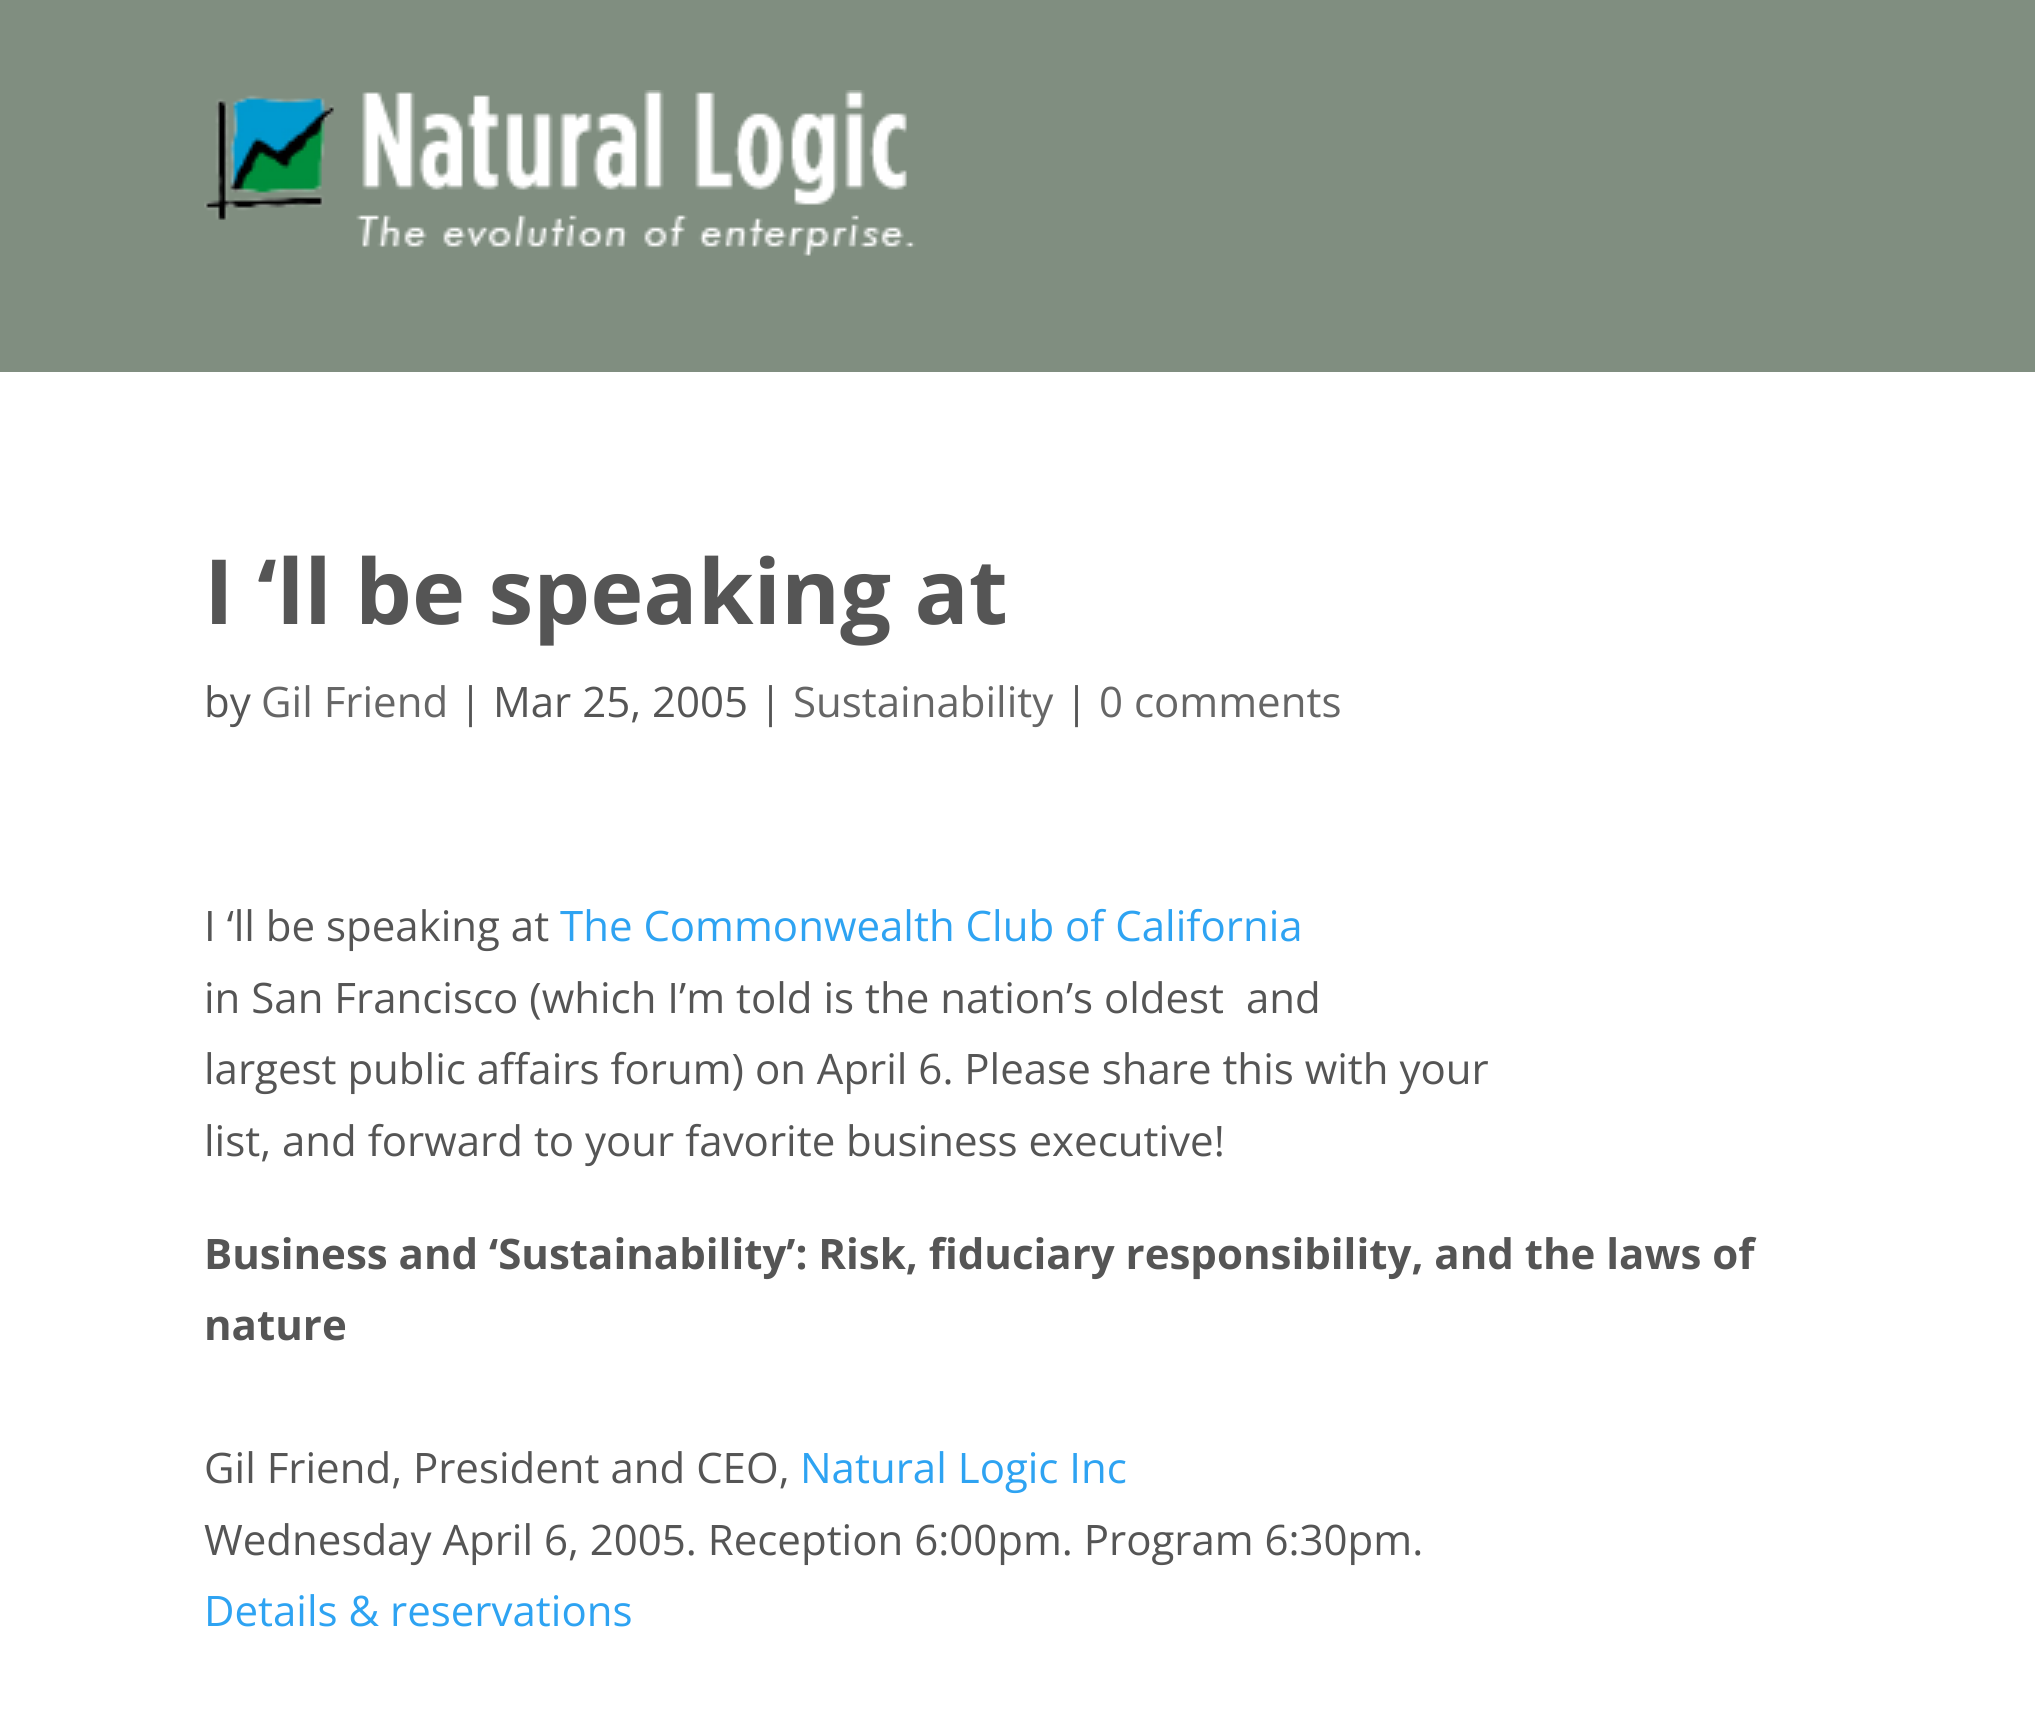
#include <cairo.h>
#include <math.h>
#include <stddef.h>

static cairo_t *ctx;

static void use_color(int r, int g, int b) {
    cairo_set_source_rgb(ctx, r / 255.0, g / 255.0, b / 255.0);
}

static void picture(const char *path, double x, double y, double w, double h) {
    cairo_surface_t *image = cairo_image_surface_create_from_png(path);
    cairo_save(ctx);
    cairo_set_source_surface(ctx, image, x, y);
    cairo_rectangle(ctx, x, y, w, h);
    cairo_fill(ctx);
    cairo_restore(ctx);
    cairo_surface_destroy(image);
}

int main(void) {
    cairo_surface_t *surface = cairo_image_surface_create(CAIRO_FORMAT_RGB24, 2035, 1713);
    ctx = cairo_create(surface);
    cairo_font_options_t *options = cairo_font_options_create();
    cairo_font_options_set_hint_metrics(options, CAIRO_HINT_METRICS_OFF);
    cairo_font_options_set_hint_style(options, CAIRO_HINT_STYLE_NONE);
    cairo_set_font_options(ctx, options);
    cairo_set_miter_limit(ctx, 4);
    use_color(255, 255, 255);
    cairo_paint(ctx);
    use_color(128, 142, 128);
    cairo_rectangle(ctx, 0, 0, 2035, 372);
    cairo_fill(ctx);
    picture("img1.png", 204, 90, 712, 166);
    cairo_select_font_face(ctx, "Open Sans", CAIRO_FONT_SLANT_NORMAL, CAIRO_FONT_WEIGHT_BOLD);
    cairo_set_font_size(ctx, 90);
    use_color(85, 85, 85);
    cairo_move_to(ctx, 204, 624);
    cairo_show_text(ctx, "I ‘ll be speaking at");
    cairo_select_font_face(ctx, "Open Sans", CAIRO_FONT_SLANT_NORMAL, CAIRO_FONT_WEIGHT_NORMAL);
    cairo_set_font_size(ctx, 42);
    cairo_move_to(ctx, 204, 717);
    cairo_show_text(ctx, "by");
    use_color(102, 102, 102);
    cairo_move_to(ctx, 261, 717);
    cairo_show_text(ctx, "Gil Friend");
    use_color(85, 85, 85);
    cairo_move_to(ctx, 459, 717);
    cairo_show_text(ctx, "| Mar 25, 2005 |");
    use_color(102, 102, 102);
    cairo_move_to(ctx, 793, 717);
    cairo_show_text(ctx, "Sustainability");
    use_color(85, 85, 85);
    cairo_move_to(ctx, 1065, 717);
    cairo_show_text(ctx, "|");
    use_color(102, 102, 102);
    cairo_move_to(ctx, 1099, 717);
    cairo_show_text(ctx, "0 comments");
    use_color(85, 85, 85);
    cairo_move_to(ctx, 204, 941);
    cairo_show_text(ctx, "I ‘ll be speaking at");
    use_color(46, 163, 242);
    cairo_move_to(ctx, 560, 941);
    cairo_show_text(ctx, "The Commonwealth Club of California");
    use_color(85, 85, 85);
    cairo_move_to(ctx, 204, 1013);
    cairo_show_text(ctx, "in San Francisco (which I’m told is the nation’s oldest  and");
    cairo_move_to(ctx, 204, 1084);
    cairo_show_text(ctx, "largest public affairs forum) on April 6. Please share this with your");
    cairo_move_to(ctx, 204, 1156);
    cairo_show_text(ctx, "list, and forward to your favorite business executive!");
    cairo_select_font_face(ctx, "Open Sans", CAIRO_FONT_SLANT_NORMAL, CAIRO_FONT_WEIGHT_BOLD);
    cairo_move_to(ctx, 204, 1269);
    cairo_show_text(ctx, "Business and ‘Sustainability’: Risk, fiduciary responsibility, and the laws of");
    cairo_move_to(ctx, 204, 1340);
    cairo_show_text(ctx, "nature");
    cairo_select_font_face(ctx, "Open Sans", CAIRO_FONT_SLANT_NORMAL, CAIRO_FONT_WEIGHT_NORMAL);
    cairo_move_to(ctx, 204, 1483);
    cairo_show_text(ctx, "Gil Friend, President and CEO,");
    use_color(46, 163, 242);
    cairo_move_to(ctx, 800, 1483);
    cairo_show_text(ctx, "Natural Logic Inc");
    use_color(85, 85, 85);
    cairo_move_to(ctx, 204, 1555);
    cairo_show_text(ctx, "Wednesday April 6, 2005. Reception 6:00pm. Program 6:30pm.");
    use_color(46, 163, 242);
    cairo_move_to(ctx, 204, 1626);
    cairo_show_text(ctx, "Details & reservations");
    cairo_surface_write_to_png(surface, "result.png");
    cairo_font_options_destroy(options);
    cairo_destroy(ctx);
    cairo_surface_destroy(surface);
    return 0;
}
